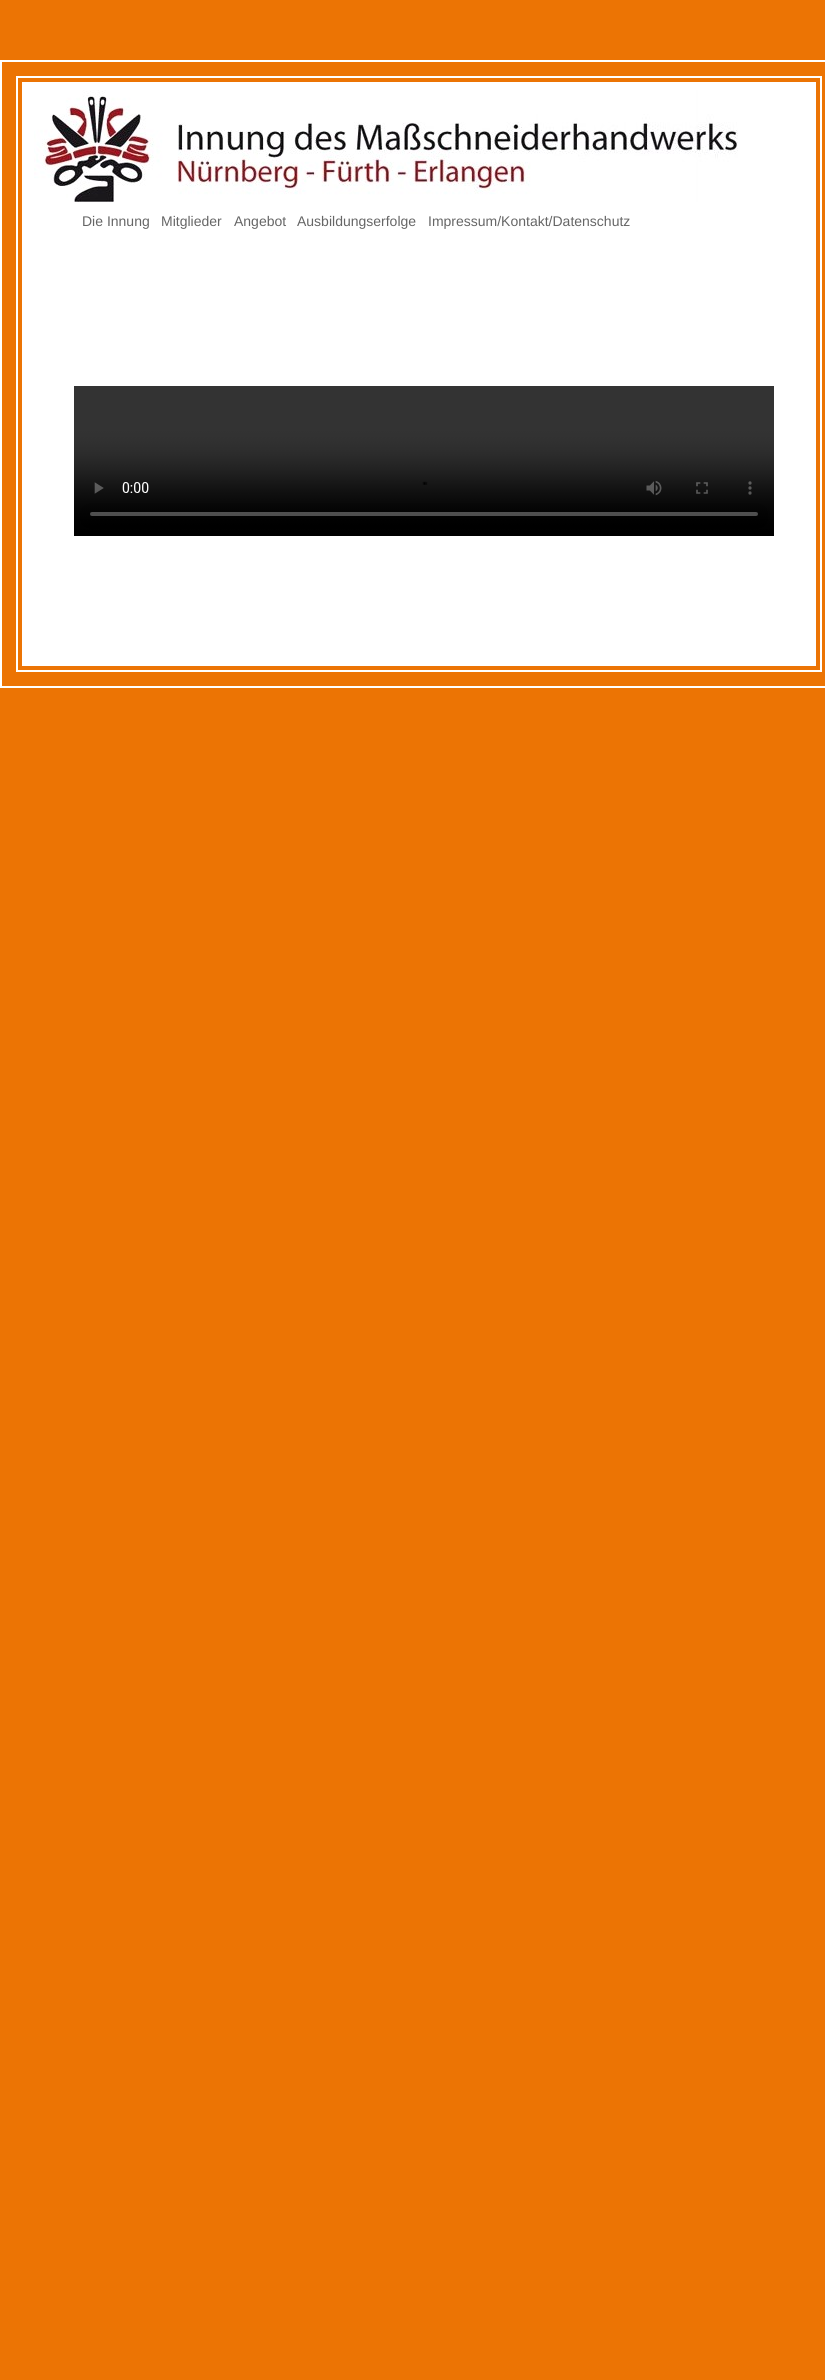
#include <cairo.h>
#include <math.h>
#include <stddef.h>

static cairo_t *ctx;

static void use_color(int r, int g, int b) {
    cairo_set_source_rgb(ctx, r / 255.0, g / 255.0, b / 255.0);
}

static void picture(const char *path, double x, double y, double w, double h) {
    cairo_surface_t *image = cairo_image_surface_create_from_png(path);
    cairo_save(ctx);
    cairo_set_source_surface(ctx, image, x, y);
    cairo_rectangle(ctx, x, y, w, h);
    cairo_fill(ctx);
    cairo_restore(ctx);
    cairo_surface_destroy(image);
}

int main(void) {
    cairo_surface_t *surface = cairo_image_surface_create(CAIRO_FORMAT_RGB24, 825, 2380);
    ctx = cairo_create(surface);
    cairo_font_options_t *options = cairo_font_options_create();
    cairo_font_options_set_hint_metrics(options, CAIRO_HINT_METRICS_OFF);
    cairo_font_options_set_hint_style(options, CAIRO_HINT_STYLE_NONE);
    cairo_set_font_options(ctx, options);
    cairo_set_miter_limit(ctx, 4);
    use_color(236, 116, 4);
    cairo_paint(ctx);
    cairo_rectangle(ctx, 1, 61, 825, 626);
    use_color(255, 255, 255);
    cairo_stroke(ctx);
    cairo_rectangle(ctx, 17, 77, 804, 594);
    cairo_stroke(ctx);
    cairo_rectangle(ctx, 22, 82, 794, 584);
    cairo_fill(ctx);
    picture("img1.png", 34, 90, 704, 112);
    cairo_select_font_face(ctx, "Liberation Sans", CAIRO_FONT_SLANT_NORMAL, CAIRO_FONT_WEIGHT_NORMAL);
    cairo_set_font_size(ctx, 14);
    use_color(102, 102, 102);
    cairo_move_to(ctx, 82, 226);
    cairo_show_text(ctx, "Die Innung");
    cairo_move_to(ctx, 161, 226);
    cairo_show_text(ctx, "Mitglieder");
    cairo_move_to(ctx, 234, 226);
    cairo_show_text(ctx, "Angebot");
    cairo_move_to(ctx, 297, 226);
    cairo_show_text(ctx, "Ausbildungserfolge");
    cairo_move_to(ctx, 428, 226);
    cairo_show_text(ctx, "Impressum/Kontakt/Datenschutz");
    picture("img2.png", 74, 386, 700, 150);
    cairo_surface_write_to_png(surface, "result.png");
    cairo_font_options_destroy(options);
    cairo_destroy(ctx);
    cairo_surface_destroy(surface);
    return 0;
}
